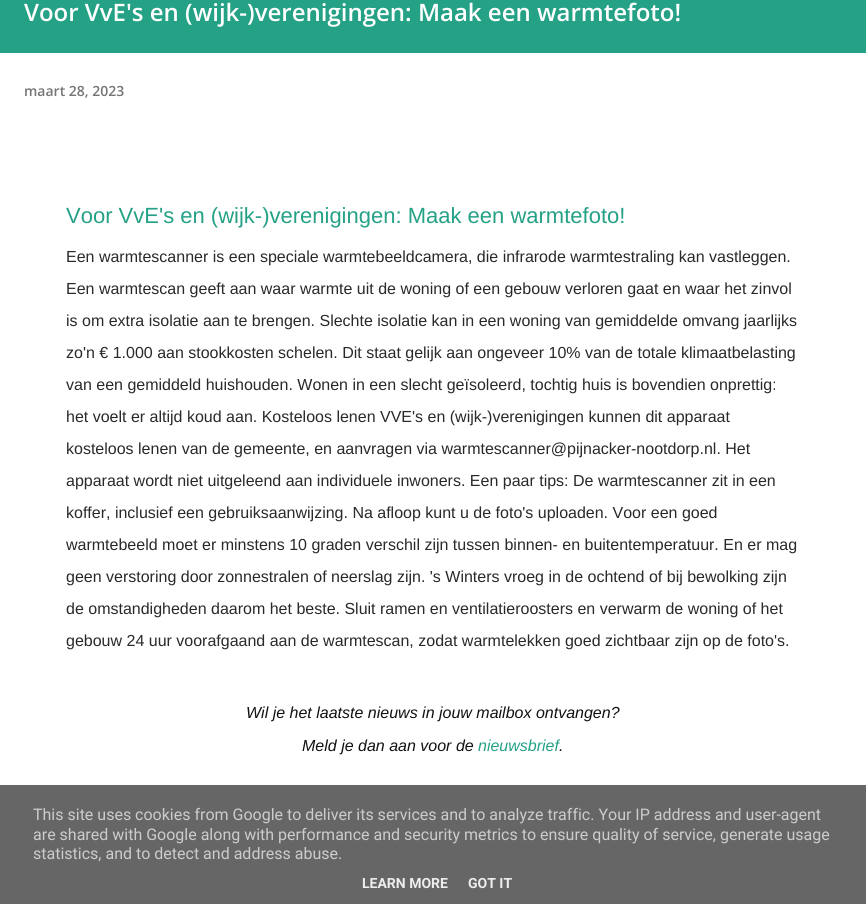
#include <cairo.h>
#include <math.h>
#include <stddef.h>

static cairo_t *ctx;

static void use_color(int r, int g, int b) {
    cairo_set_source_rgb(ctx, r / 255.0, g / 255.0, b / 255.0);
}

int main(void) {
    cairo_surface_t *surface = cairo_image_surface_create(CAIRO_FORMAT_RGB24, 866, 904);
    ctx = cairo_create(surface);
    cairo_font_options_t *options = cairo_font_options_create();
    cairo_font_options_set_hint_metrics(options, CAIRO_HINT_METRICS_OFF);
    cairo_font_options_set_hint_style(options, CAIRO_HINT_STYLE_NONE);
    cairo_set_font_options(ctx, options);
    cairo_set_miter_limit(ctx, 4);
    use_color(255, 255, 255);
    cairo_paint(ctx);
    use_color(37, 161, 134);
    cairo_rectangle(ctx, 0, 0, 866, 53);
    cairo_fill(ctx);
    cairo_select_font_face(ctx, "Open Sans SemiBold", CAIRO_FONT_SLANT_NORMAL, CAIRO_FONT_WEIGHT_NORMAL);
    cairo_set_font_size(ctx, 24);
    use_color(255, 255, 255);
    cairo_move_to(ctx, 24, 21);
    cairo_show_text(ctx, "Voor VvE's en (wijk-)verenigingen: Maak een warmtefoto!");
    cairo_set_font_size(ctx, 14);
    use_color(117, 117, 117);
    cairo_move_to(ctx, 24, 96);
    cairo_show_text(ctx, "maart 28, 2023");
    cairo_select_font_face(ctx, "Liberation Sans", CAIRO_FONT_SLANT_NORMAL, CAIRO_FONT_WEIGHT_NORMAL);
    cairo_set_font_size(ctx, 22);
    use_color(37, 161, 134);
    cairo_move_to(ctx, 66, 223);
    cairo_show_text(ctx, "Voor VvE's en (wijk-)verenigingen: Maak een warmtefoto!");
    cairo_set_font_size(ctx, 16);
    use_color(41, 41, 41);
    cairo_move_to(ctx, 66, 262);
    cairo_show_text(ctx, "Een warmtescanner is een speciale warmtebeeldcamera, die infrarode warmtestraling kan vastleggen.");
    cairo_move_to(ctx, 66, 294);
    cairo_show_text(ctx, "Een warmtescan geeft aan waar warmte uit de woning of een gebouw verloren gaat en waar het zinvol");
    cairo_move_to(ctx, 66, 326);
    cairo_show_text(ctx, "is om extra isolatie aan te brengen. Slechte isolatie kan in een woning van gemiddelde omvang jaarlijks");
    cairo_move_to(ctx, 66, 358);
    cairo_show_text(ctx, "zo'n € 1.000 aan stookkosten schelen. Dit staat gelijk aan ongeveer 10% van de totale klimaatbelasting");
    cairo_move_to(ctx, 66, 390);
    cairo_show_text(ctx, "van een gemiddeld huishouden. Wonen in een slecht geïsoleerd, tochtig huis is bovendien onprettig:");
    cairo_move_to(ctx, 66, 422);
    cairo_show_text(ctx, "het voelt er altijd koud aan. Kosteloos lenen VVE's en (wijk-)verenigingen kunnen dit apparaat");
    cairo_move_to(ctx, 66, 454);
    cairo_show_text(ctx, "kosteloos lenen van de gemeente, en aanvragen via warmtescanner@pijnacker-nootdorp.nl. Het");
    cairo_move_to(ctx, 66, 486);
    cairo_show_text(ctx, "apparaat wordt niet uitgeleend aan individuele inwoners. Een paar tips: De warmtescanner zit in een");
    cairo_move_to(ctx, 66, 518);
    cairo_show_text(ctx, "koffer, inclusief een gebruiksaanwijzing. Na afloop kunt u de foto's uploaden. Voor een goed");
    cairo_move_to(ctx, 66, 550);
    cairo_show_text(ctx, "warmtebeeld moet er minstens 10 graden verschil zijn tussen binnen- en buitentemperatuur. En er mag");
    cairo_move_to(ctx, 66, 582);
    cairo_show_text(ctx, "geen verstoring door zonnestralen of neerslag zijn. 's Winters vroeg in de ochtend of bij bewolking zijn");
    cairo_move_to(ctx, 66, 614);
    cairo_show_text(ctx, "de omstandigheden daarom het beste. Sluit ramen en ventilatieroosters en verwarm de woning of het");
    cairo_move_to(ctx, 66, 646);
    cairo_show_text(ctx, "gebouw 24 uur voorafgaand aan de warmtescan, zodat warmtelekken goed zichtbaar zijn op de foto's.");
    cairo_select_font_face(ctx, "Liberation Sans", CAIRO_FONT_SLANT_ITALIC, CAIRO_FONT_WEIGHT_NORMAL);
    use_color(17, 17, 17);
    cairo_move_to(ctx, 246, 718);
    cairo_show_text(ctx, "Wil je het laatste nieuws in jouw mailbox ontvangen?");
    cairo_move_to(ctx, 302, 751);
    cairo_show_text(ctx, "Meld je dan aan voor de");
    use_color(37, 161, 134);
    cairo_move_to(ctx, 478, 751);
    cairo_show_text(ctx, "nieuwsbrief");
    use_color(17, 17, 17);
    cairo_move_to(ctx, 559, 751);
    cairo_show_text(ctx, ".");
    use_color(102, 102, 102);
    cairo_rectangle(ctx, 0, 785, 866, 119);
    cairo_fill(ctx);
    cairo_select_font_face(ctx, "Roboto", CAIRO_FONT_SLANT_NORMAL, CAIRO_FONT_WEIGHT_NORMAL);
    use_color(204, 204, 204);
    cairo_move_to(ctx, 33, 820);
    cairo_show_text(ctx, "This site uses cookies from Google to deliver its services and to analyze traffic. Your IP address and user-agent");
    cairo_move_to(ctx, 33, 840);
    cairo_show_text(ctx, "are shared with Google along with performance and security metrics to ensure quality of service, generate usage");
    cairo_move_to(ctx, 33, 859);
    cairo_show_text(ctx, "statistics, and to detect and address abuse.");
    cairo_select_font_face(ctx, "Roboto", CAIRO_FONT_SLANT_NORMAL, CAIRO_FONT_WEIGHT_BOLD);
    cairo_set_font_size(ctx, 14);
    use_color(238, 238, 238);
    cairo_move_to(ctx, 362, 888);
    cairo_show_text(ctx, "LEARN MORE");
    cairo_move_to(ctx, 468, 888);
    cairo_show_text(ctx, "GOT IT");
    cairo_surface_write_to_png(surface, "result.png");
    cairo_font_options_destroy(options);
    cairo_destroy(ctx);
    cairo_surface_destroy(surface);
    return 0;
}
